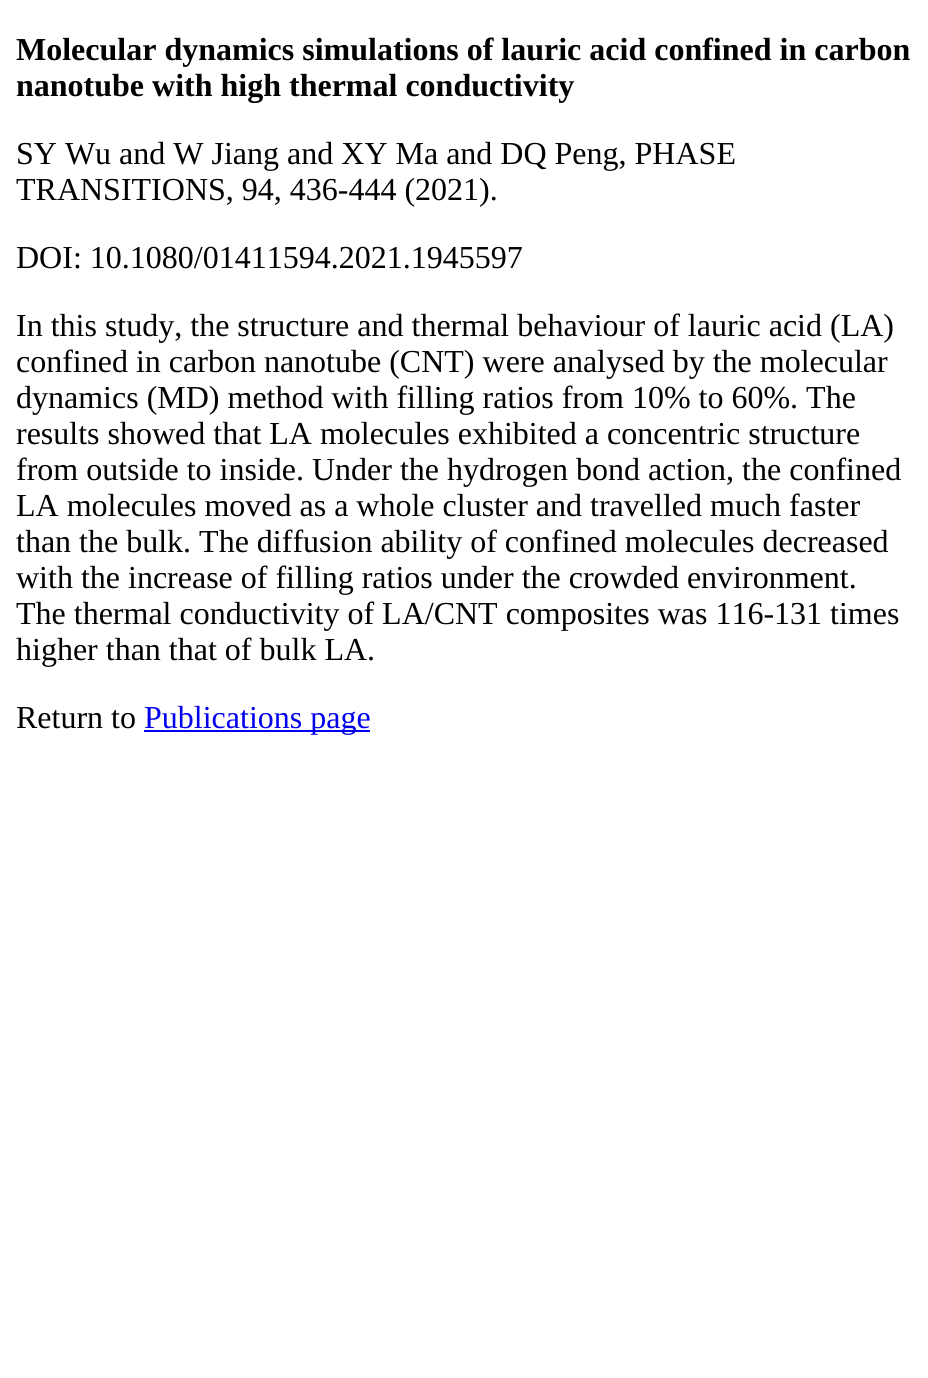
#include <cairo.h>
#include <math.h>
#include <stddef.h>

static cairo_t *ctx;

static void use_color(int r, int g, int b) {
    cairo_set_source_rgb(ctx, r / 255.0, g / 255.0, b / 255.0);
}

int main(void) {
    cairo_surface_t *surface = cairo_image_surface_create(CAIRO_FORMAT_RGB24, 928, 1378);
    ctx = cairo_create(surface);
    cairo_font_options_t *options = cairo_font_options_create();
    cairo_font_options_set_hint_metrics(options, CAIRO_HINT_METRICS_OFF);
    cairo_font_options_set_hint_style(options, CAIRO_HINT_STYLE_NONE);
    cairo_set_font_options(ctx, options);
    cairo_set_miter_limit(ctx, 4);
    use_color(255, 255, 255);
    cairo_paint(ctx);
    cairo_select_font_face(ctx, "Liberation Serif", CAIRO_FONT_SLANT_NORMAL, CAIRO_FONT_WEIGHT_BOLD);
    cairo_set_font_size(ctx, 32);
    use_color(0, 0, 0);
    cairo_move_to(ctx, 16, 60);
    cairo_show_text(ctx, "Molecular dynamics simulations of lauric acid confined in carbon");
    cairo_move_to(ctx, 16, 96);
    cairo_show_text(ctx, "nanotube with high thermal conductivity");
    cairo_select_font_face(ctx, "Liberation Serif", CAIRO_FONT_SLANT_NORMAL, CAIRO_FONT_WEIGHT_NORMAL);
    cairo_move_to(ctx, 16, 164);
    cairo_show_text(ctx, "SY Wu and W Jiang and XY Ma and DQ Peng, PHASE");
    cairo_move_to(ctx, 16, 200);
    cairo_show_text(ctx, "TRANSITIONS, 94, 436-444 (2021).");
    cairo_move_to(ctx, 16, 268);
    cairo_show_text(ctx, "DOI: 10.1080/01411594.2021.1945597");
    cairo_move_to(ctx, 16, 336);
    cairo_show_text(ctx, "In this study, the structure and thermal behaviour of lauric acid (LA)");
    cairo_move_to(ctx, 16, 372);
    cairo_show_text(ctx, "confined in carbon nanotube (CNT) were analysed by the molecular");
    cairo_move_to(ctx, 16, 408);
    cairo_show_text(ctx, "dynamics (MD) method with filling ratios from 10% to 60%. The");
    cairo_move_to(ctx, 16, 444);
    cairo_show_text(ctx, "results showed that LA molecules exhibited a concentric structure");
    cairo_move_to(ctx, 16, 480);
    cairo_show_text(ctx, "from outside to inside. Under the hydrogen bond action, the confined");
    cairo_move_to(ctx, 16, 516);
    cairo_show_text(ctx, "LA molecules moved as a whole cluster and travelled much faster");
    cairo_move_to(ctx, 16, 552);
    cairo_show_text(ctx, "than the bulk. The diffusion ability of confined molecules decreased");
    cairo_move_to(ctx, 16, 588);
    cairo_show_text(ctx, "with the increase of filling ratios under the crowded environment.");
    cairo_move_to(ctx, 16, 624);
    cairo_show_text(ctx, "The thermal conductivity of LA/CNT composites was 116-131 times");
    cairo_move_to(ctx, 16, 660);
    cairo_show_text(ctx, "higher than that of bulk LA.");
    cairo_move_to(ctx, 16, 728);
    cairo_show_text(ctx, "Return to");
    use_color(0, 0, 238);
    cairo_rectangle(ctx, 144, 730, 226, 2);
    cairo_fill(ctx);
    cairo_move_to(ctx, 144, 728);
    cairo_show_text(ctx, "Publications page");
    cairo_surface_write_to_png(surface, "result.png");
    cairo_font_options_destroy(options);
    cairo_destroy(ctx);
    cairo_surface_destroy(surface);
    return 0;
}
